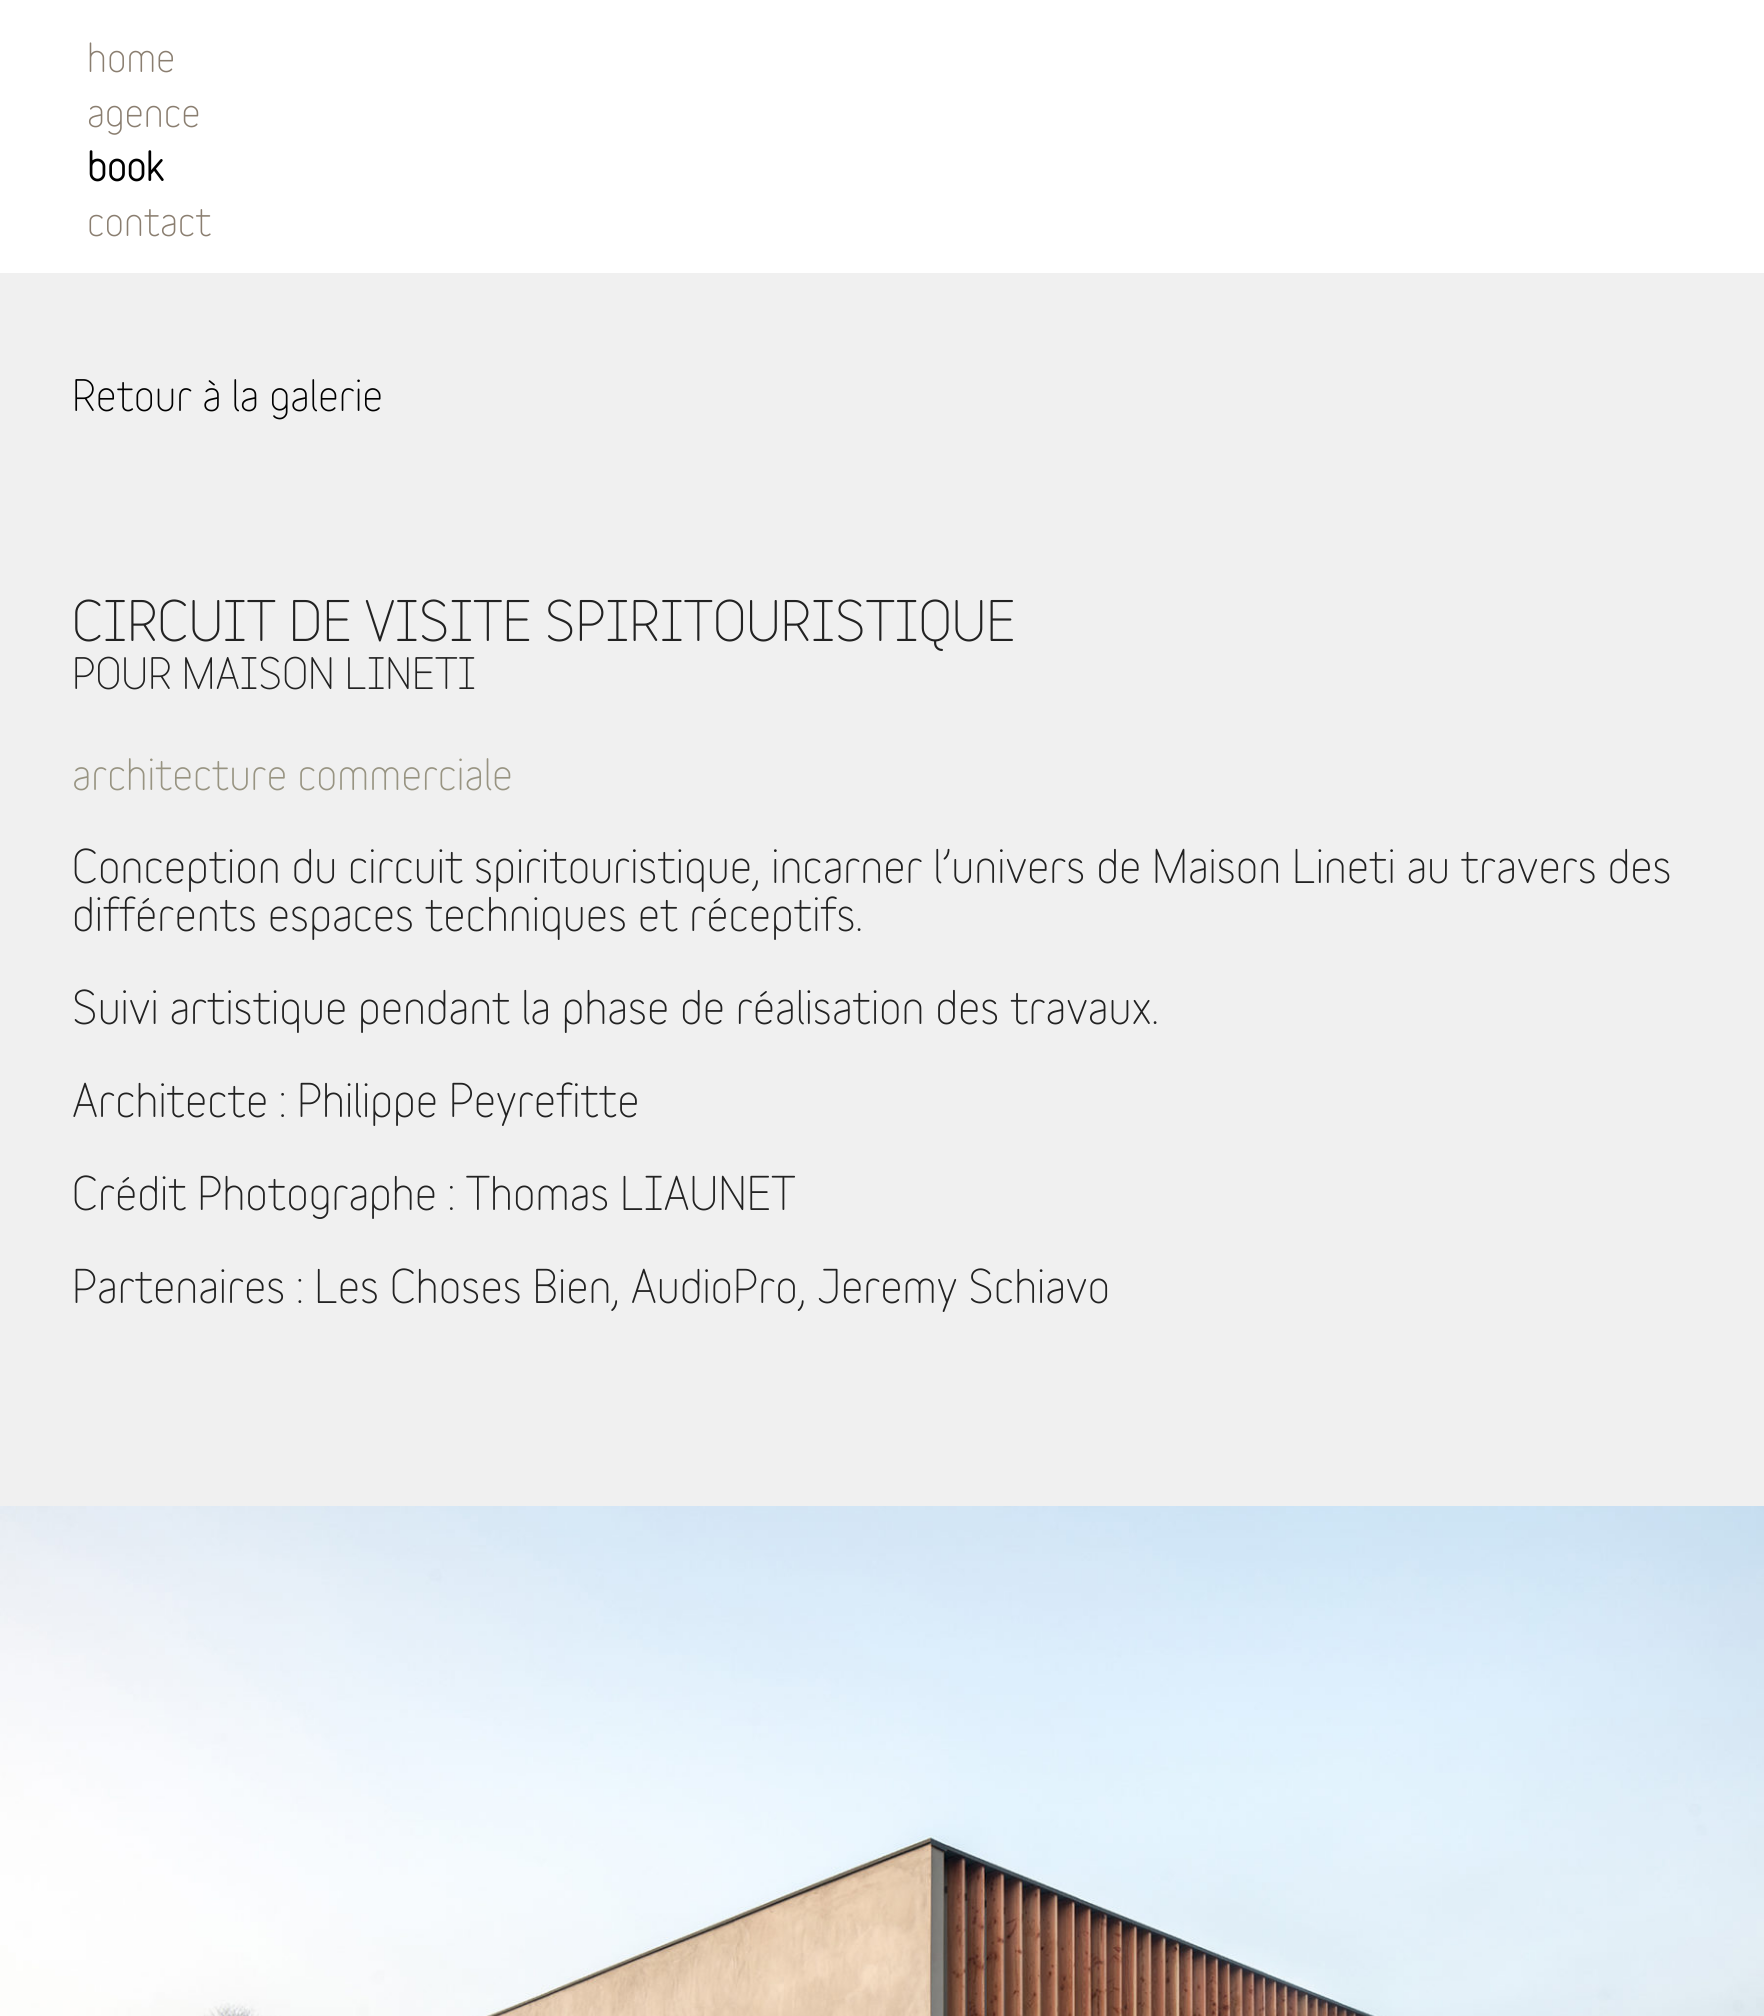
#include <cairo.h>
#include <math.h>
#include <stddef.h>

static cairo_t *ctx;

static void use_color(int r, int g, int b) {
    cairo_set_source_rgb(ctx, r / 255.0, g / 255.0, b / 255.0);
}

static void picture(const char *path, double x, double y, double w, double h) {
    cairo_surface_t *image = cairo_image_surface_create_from_png(path);
    cairo_save(ctx);
    cairo_set_source_surface(ctx, image, x, y);
    cairo_rectangle(ctx, x, y, w, h);
    cairo_fill(ctx);
    cairo_restore(ctx);
    cairo_surface_destroy(image);
}

int main(void) {
    cairo_surface_t *surface = cairo_image_surface_create(CAIRO_FORMAT_RGB24, 1764, 2016);
    ctx = cairo_create(surface);
    cairo_font_options_t *options = cairo_font_options_create();
    cairo_font_options_set_hint_metrics(options, CAIRO_HINT_METRICS_OFF);
    cairo_font_options_set_hint_style(options, CAIRO_HINT_STYLE_NONE);
    cairo_set_font_options(ctx, options);
    cairo_set_miter_limit(ctx, 4);
    use_color(240, 240, 240);
    cairo_paint(ctx);
    use_color(255, 255, 255);
    cairo_rectangle(ctx, 0, 0, 1764, 273);
    cairo_fill(ctx);
    cairo_select_font_face(ctx, "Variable", CAIRO_FONT_SLANT_NORMAL, CAIRO_FONT_WEIGHT_NORMAL);
    cairo_set_font_size(ctx, 39);
    use_color(138, 126, 112);
    cairo_move_to(ctx, 87, 72);
    cairo_show_text(ctx, "home");
    cairo_move_to(ctx, 87, 127);
    cairo_show_text(ctx, "agence");
    cairo_select_font_face(ctx, "Variable", CAIRO_FONT_SLANT_NORMAL, CAIRO_FONT_WEIGHT_BOLD);
    use_color(0, 0, 0);
    cairo_move_to(ctx, 87, 181);
    cairo_show_text(ctx, "book");
    cairo_select_font_face(ctx, "Variable", CAIRO_FONT_SLANT_NORMAL, CAIRO_FONT_WEIGHT_NORMAL);
    use_color(138, 126, 112);
    cairo_move_to(ctx, 87, 236);
    cairo_show_text(ctx, "contact");
    cairo_set_font_size(ctx, 42);
    use_color(0, 0, 0);
    cairo_move_to(ctx, 72, 411);
    cairo_show_text(ctx, "Retour à la galerie");
    cairo_set_font_size(ctx, 54);
    use_color(34, 34, 34);
    cairo_move_to(ctx, 72, 641);
    cairo_show_text(ctx, "CIRCUIT DE VISITE SPIRITOURISTIQUE");
    cairo_set_font_size(ctx, 42);
    cairo_move_to(ctx, 72, 689);
    cairo_show_text(ctx, "POUR MAISON LINETI");
    use_color(152, 148, 130);
    cairo_move_to(ctx, 72, 790);
    cairo_show_text(ctx, "architecture commerciale");
    cairo_set_font_size(ctx, 45);
    use_color(34, 34, 34);
    cairo_move_to(ctx, 72, 883);
    cairo_show_text(ctx, "Conception du circuit spiritouristique, incarner l’univers de Maison Lineti au travers des");
    cairo_move_to(ctx, 72, 931);
    cairo_show_text(ctx, "différents espaces techniques et réceptifs.");
    cairo_move_to(ctx, 72, 1024);
    cairo_show_text(ctx, "Suivi artistique pendant la phase de réalisation des travaux.");
    cairo_move_to(ctx, 72, 1117);
    cairo_show_text(ctx, "Architecte : Philippe Peyrefitte");
    cairo_move_to(ctx, 72, 1210);
    cairo_show_text(ctx, "Crédit Photographe : Thomas LIAUNET");
    cairo_move_to(ctx, 72, 1303);
    cairo_show_text(ctx, "Partenaires : Les Choses Bien, AudioPro, Jeremy Schiavo");
    picture("img1.png", 0, 1506, 1764, 510);
    cairo_surface_write_to_png(surface, "result.png");
    cairo_font_options_destroy(options);
    cairo_destroy(ctx);
    cairo_surface_destroy(surface);
    return 0;
}
